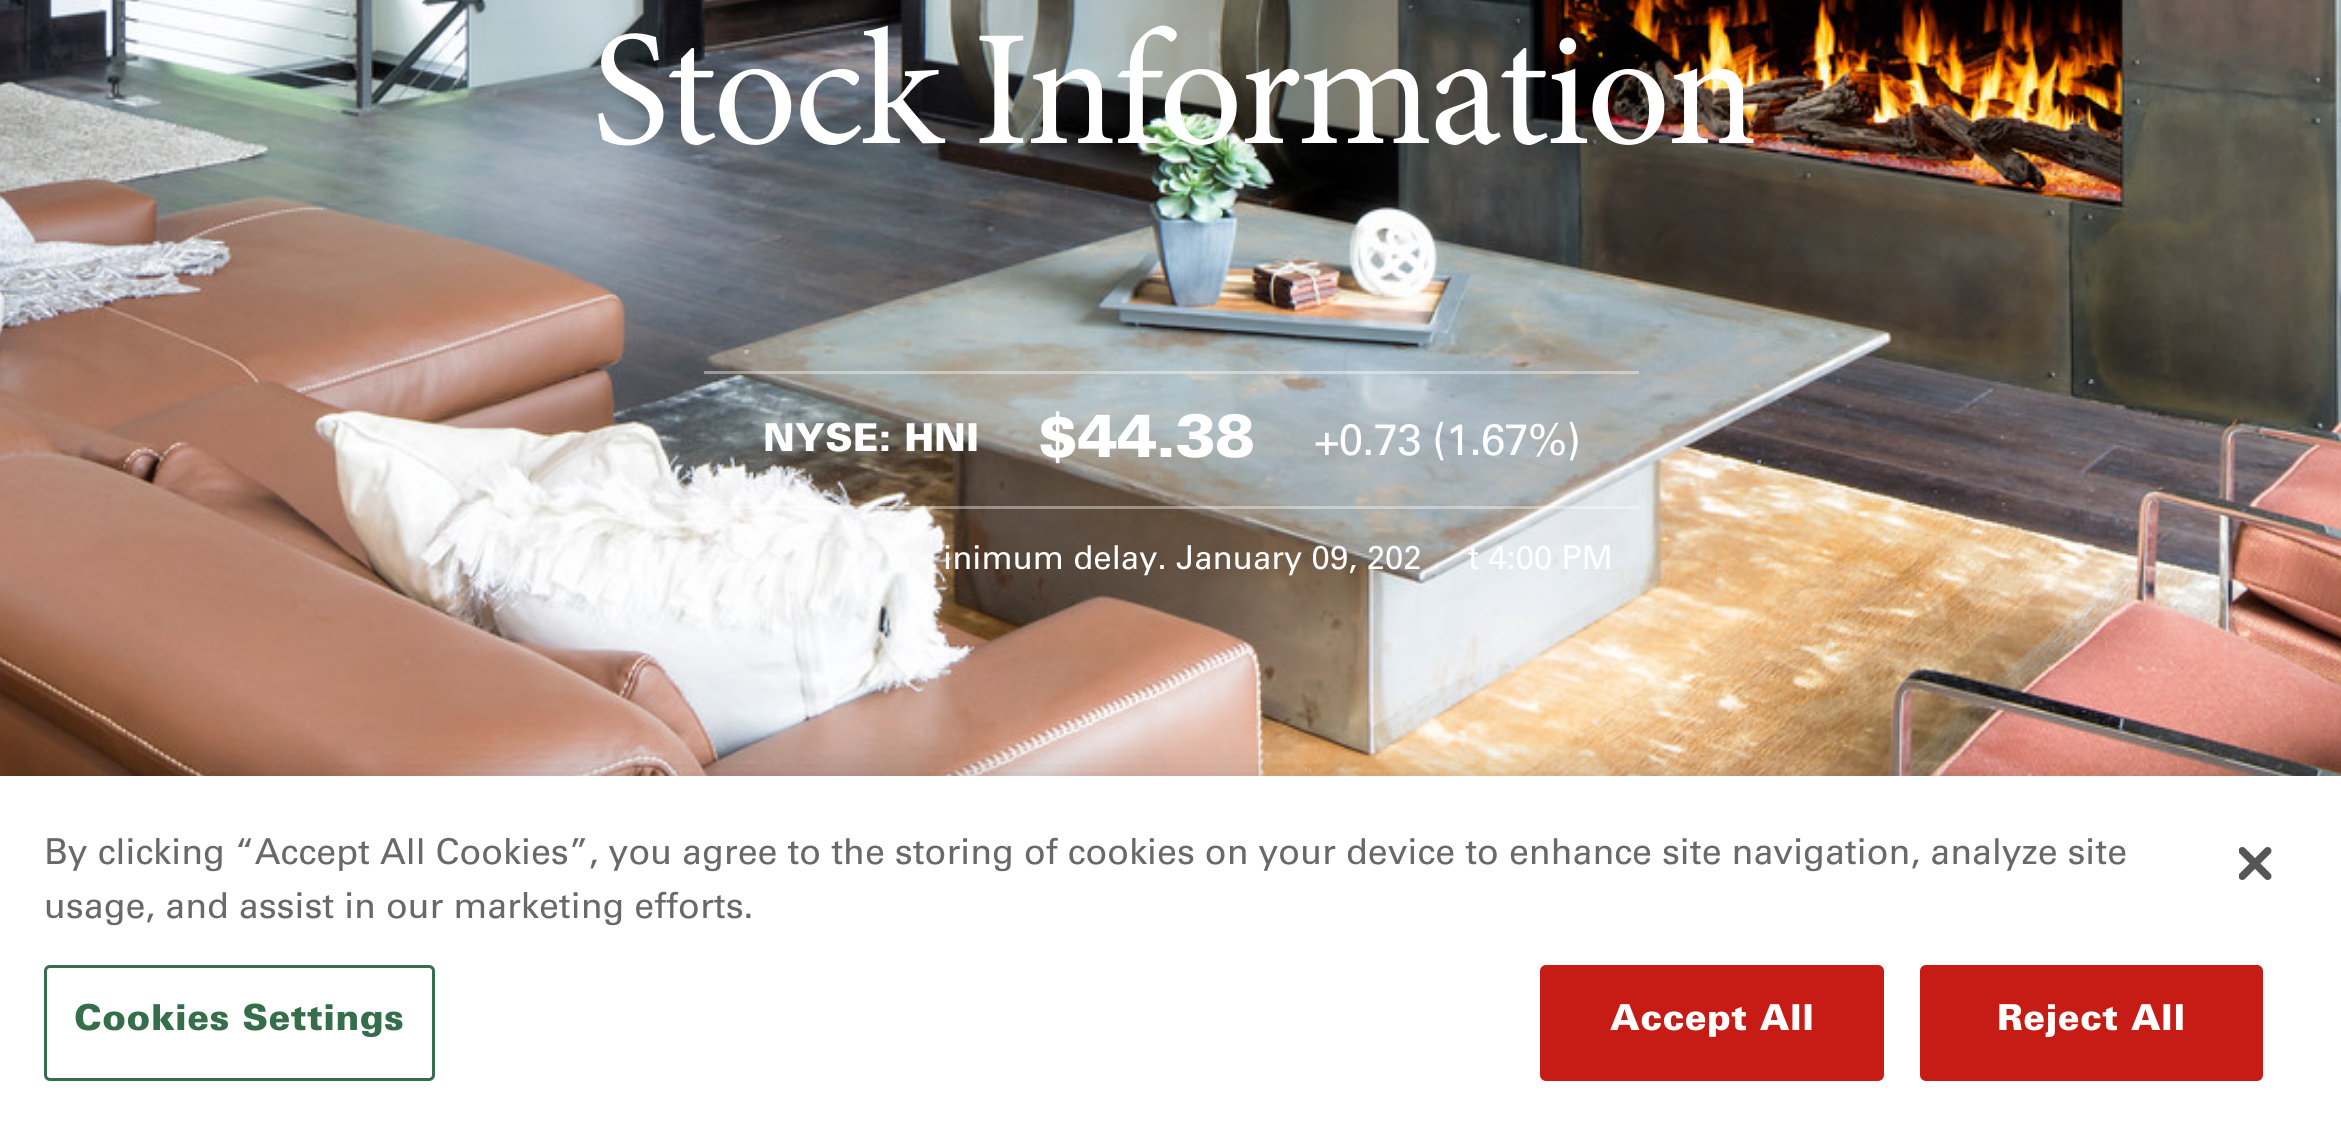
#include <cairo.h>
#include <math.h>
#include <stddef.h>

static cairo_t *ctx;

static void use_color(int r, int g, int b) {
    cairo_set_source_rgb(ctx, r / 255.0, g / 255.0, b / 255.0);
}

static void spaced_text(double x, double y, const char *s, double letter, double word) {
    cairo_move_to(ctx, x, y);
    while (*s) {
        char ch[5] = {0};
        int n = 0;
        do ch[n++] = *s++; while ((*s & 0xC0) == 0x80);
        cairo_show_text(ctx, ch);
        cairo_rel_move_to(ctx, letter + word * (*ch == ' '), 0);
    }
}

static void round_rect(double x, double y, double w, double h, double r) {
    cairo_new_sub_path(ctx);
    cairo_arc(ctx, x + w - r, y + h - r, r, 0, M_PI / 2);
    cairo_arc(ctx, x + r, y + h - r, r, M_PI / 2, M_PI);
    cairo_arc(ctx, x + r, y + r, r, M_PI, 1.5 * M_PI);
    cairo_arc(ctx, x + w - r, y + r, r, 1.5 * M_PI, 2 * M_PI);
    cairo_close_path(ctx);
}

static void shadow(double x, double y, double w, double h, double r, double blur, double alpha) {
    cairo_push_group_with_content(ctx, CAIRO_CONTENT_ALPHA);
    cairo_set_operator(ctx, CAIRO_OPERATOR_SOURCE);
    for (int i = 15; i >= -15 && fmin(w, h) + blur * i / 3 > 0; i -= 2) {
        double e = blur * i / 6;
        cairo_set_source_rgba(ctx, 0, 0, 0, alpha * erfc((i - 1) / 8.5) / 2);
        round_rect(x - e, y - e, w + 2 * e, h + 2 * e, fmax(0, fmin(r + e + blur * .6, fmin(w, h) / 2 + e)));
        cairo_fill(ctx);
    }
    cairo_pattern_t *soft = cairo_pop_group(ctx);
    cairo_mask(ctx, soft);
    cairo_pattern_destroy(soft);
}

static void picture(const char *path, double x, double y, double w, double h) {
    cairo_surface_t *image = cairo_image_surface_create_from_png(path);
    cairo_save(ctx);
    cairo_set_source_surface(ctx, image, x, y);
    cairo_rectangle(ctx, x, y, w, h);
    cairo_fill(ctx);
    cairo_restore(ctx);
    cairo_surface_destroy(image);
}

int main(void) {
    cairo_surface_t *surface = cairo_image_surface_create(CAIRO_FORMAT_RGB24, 2341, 1123);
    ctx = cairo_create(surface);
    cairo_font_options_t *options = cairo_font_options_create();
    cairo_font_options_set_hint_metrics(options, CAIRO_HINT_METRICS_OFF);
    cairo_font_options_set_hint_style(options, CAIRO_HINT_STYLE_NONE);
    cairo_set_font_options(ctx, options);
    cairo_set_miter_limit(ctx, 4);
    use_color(255, 255, 255);
    cairo_paint(ctx);
    picture("img1.png", 0, 0, 2341, 776);
    picture("img2.png", 598, 25, 1156, 121);
    cairo_set_source_rgba(ctx, 1, 1, 1, 0.4);
    cairo_rectangle(ctx, 704, 371, 935, 3);
    cairo_fill(ctx);
    cairo_rectangle(ctx, 720, 506, 919, 3);
    cairo_fill(ctx);
    cairo_select_font_face(ctx, "Univers Black", CAIRO_FONT_SLANT_NORMAL, CAIRO_FONT_WEIGHT_NORMAL);
    cairo_set_font_size(ctx, 38.5);
    use_color(255, 255, 255);
    cairo_move_to(ctx, 763, 451);
    cairo_show_text(ctx, "NYSE: HNI");
    cairo_set_font_size(ctx, 60.5);
    spaced_text(1038, 457, "$44.38", -0.9, 0);
    cairo_select_font_face(ctx, "Univers", CAIRO_FONT_SLANT_NORMAL, CAIRO_FONT_WEIGHT_NORMAL);
    cairo_set_font_size(ctx, 44);
    spaced_text(1314, 455, "+0.73 (1.67%)", -0.9, 0);
    cairo_set_font_size(ctx, 33);
    cairo_move_to(ctx, 943, 569);
    cairo_show_text(ctx, "inimum delay. January 09, 202");
    cairo_move_to(ctx, 1468, 569);
    cairo_show_text(ctx, "t 4:00 PM");
    use_color(0, 0, 0);
    shadow(0, 776, 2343, 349, 0, 25, 0.2);
    use_color(255, 255, 255);
    cairo_rectangle(ctx, 0, 776, 2341, 347);
    cairo_fill(ctx);
    cairo_set_font_size(ctx, 35.77);
    use_color(105, 105, 105);
    cairo_move_to(ctx, 44, 864);
    cairo_show_text(ctx, "By clicking “Accept All Cookies”, you agree to the storing of cookies on your device to enhance site navigation, analyze site");
    cairo_move_to(ctx, 44, 918);
    cairo_show_text(ctx, "usage, and assist in our marketing efforts.");
    round_rect(45.5, 966.5, 388, 113, 4.5);
    use_color(52, 110, 74);
    cairo_set_line_width(ctx, 3);
    cairo_stroke(ctx);
    cairo_select_font_face(ctx, "Univers Black", CAIRO_FONT_SLANT_NORMAL, CAIRO_FONT_WEIGHT_NORMAL);
    spaced_text(74, 1030, "Cookies Settings", 0.4, 0);
    use_color(199, 28, 21);
    round_rect(1541.5, 966.5, 341, 113, 4.5);
    cairo_fill_preserve(ctx);
    cairo_stroke(ctx);
    use_color(255, 255, 255);
    spaced_text(1610, 1030, "Accept All", 0.4, 0);
    use_color(199, 28, 21);
    round_rect(1921.5, 966.5, 340, 113, 4.5);
    cairo_fill_preserve(ctx);
    cairo_stroke(ctx);
    use_color(255, 255, 255);
    spaced_text(1997, 1030, "Reject All", 0.4, 0);
    picture("img3.png", 2239, 847, 33, 33);
    cairo_surface_write_to_png(surface, "result.png");
    cairo_font_options_destroy(options);
    cairo_destroy(ctx);
    cairo_surface_destroy(surface);
    return 0;
}
